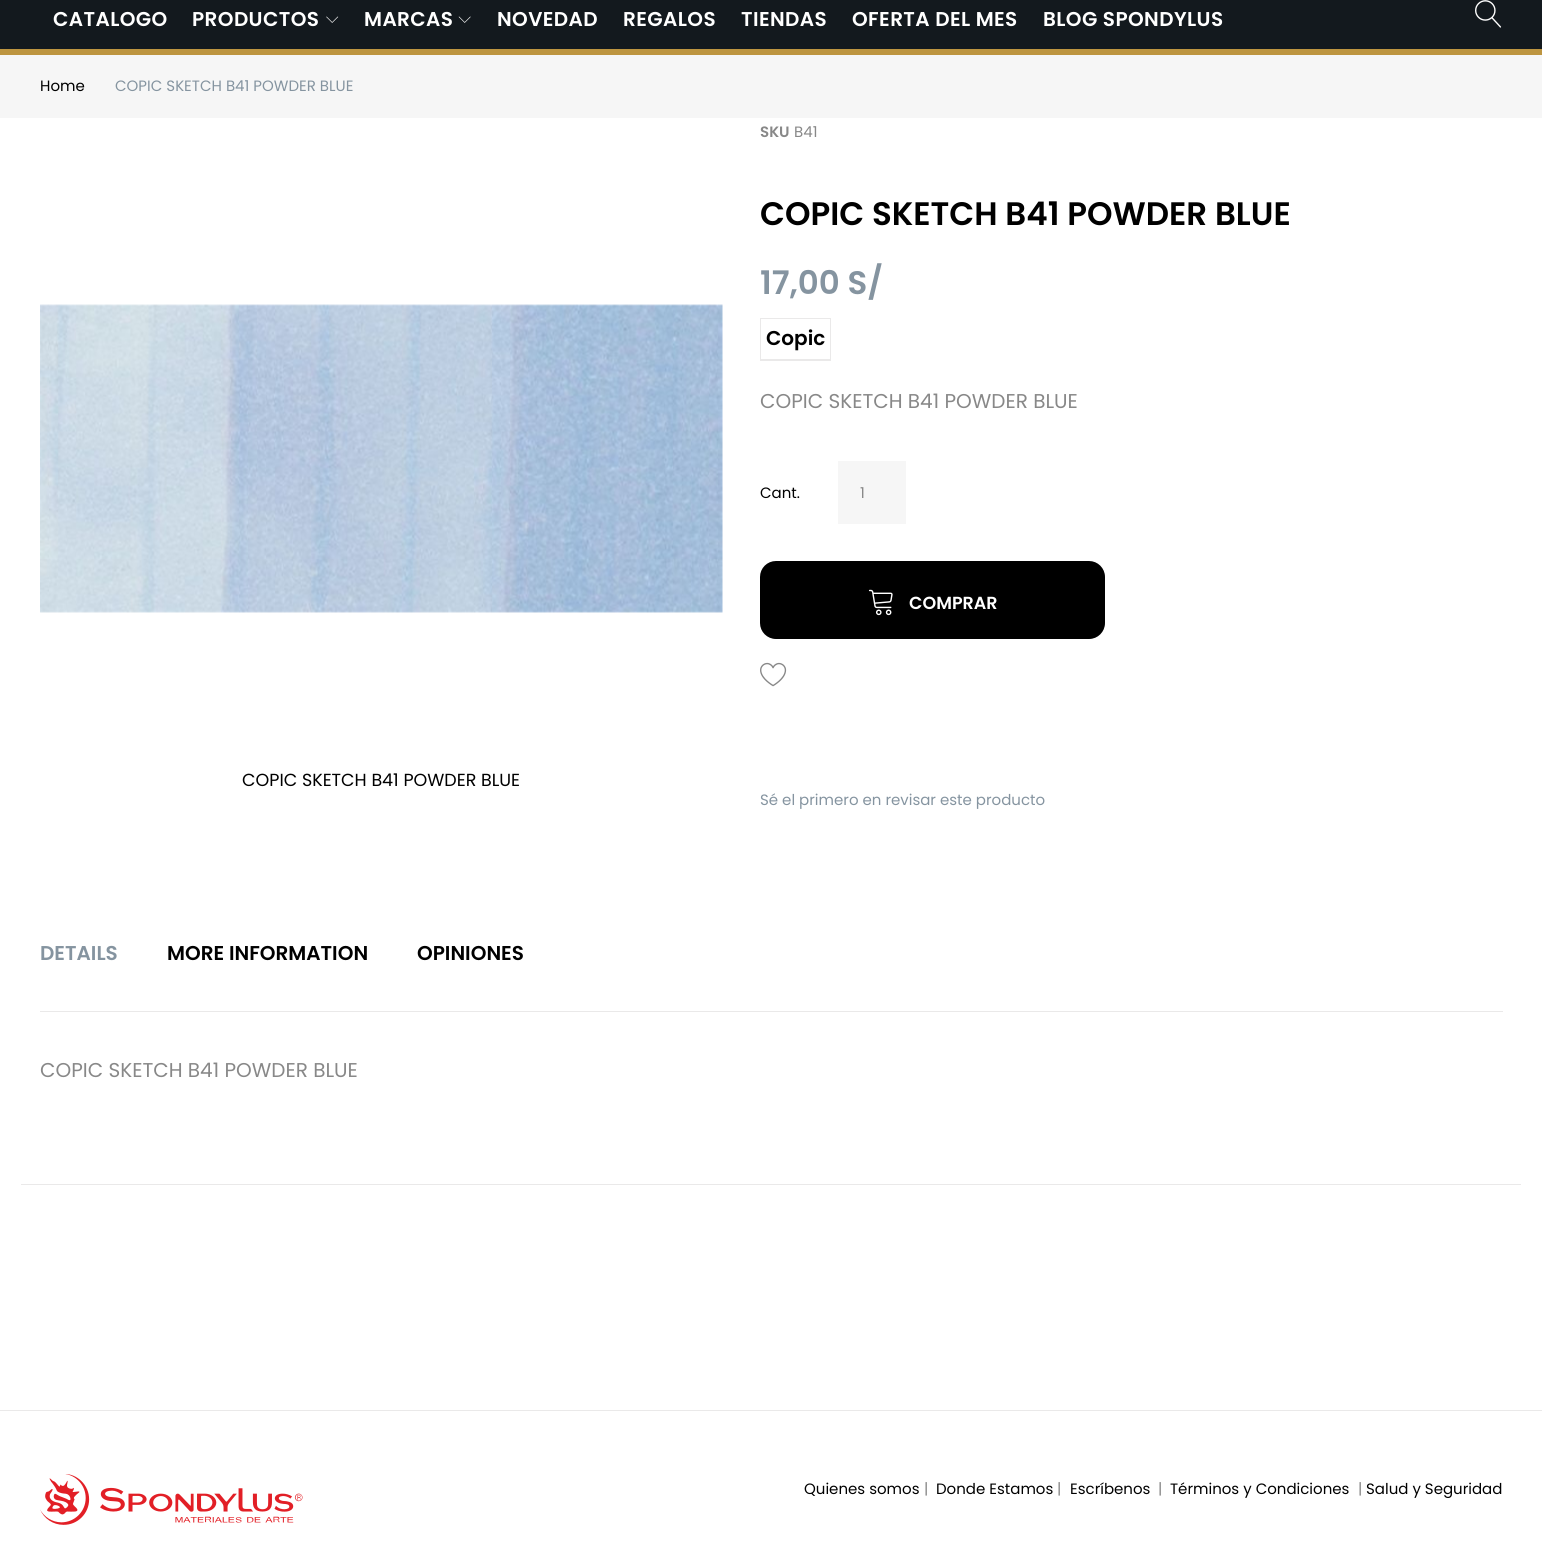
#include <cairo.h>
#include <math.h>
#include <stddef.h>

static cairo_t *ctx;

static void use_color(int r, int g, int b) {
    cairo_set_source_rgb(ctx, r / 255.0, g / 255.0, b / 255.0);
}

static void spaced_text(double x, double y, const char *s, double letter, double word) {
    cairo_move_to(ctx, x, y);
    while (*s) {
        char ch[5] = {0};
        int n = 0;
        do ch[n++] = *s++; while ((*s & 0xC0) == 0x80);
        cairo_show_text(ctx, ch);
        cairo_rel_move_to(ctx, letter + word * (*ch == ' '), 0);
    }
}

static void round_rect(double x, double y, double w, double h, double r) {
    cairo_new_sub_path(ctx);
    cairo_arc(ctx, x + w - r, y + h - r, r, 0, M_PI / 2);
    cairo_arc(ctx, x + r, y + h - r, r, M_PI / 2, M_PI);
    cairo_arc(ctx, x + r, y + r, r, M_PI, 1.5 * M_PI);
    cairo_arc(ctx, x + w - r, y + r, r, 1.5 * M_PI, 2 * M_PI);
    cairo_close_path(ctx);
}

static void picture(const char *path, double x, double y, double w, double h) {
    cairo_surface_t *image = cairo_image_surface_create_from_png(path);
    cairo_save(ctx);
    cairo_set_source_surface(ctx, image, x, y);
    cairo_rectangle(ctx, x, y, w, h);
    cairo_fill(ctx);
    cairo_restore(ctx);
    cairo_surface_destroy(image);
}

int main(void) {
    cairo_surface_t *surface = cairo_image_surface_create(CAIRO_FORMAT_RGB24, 1542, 1558);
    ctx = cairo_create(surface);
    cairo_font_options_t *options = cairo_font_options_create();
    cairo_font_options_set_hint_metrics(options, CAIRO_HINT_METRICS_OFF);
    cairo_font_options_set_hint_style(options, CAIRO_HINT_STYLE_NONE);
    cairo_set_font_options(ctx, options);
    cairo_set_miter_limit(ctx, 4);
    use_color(255, 255, 255);
    cairo_paint(ctx);
    use_color(19, 25, 30);
    cairo_rectangle(ctx, 0, 0, 1542, 49);
    cairo_fill(ctx);
    use_color(189, 149, 64);
    cairo_rectangle(ctx, 0, 49, 1542, 6);
    cairo_fill(ctx);
    cairo_select_font_face(ctx, "Poppins SemiBold", CAIRO_FONT_SLANT_NORMAL, CAIRO_FONT_WEIGHT_NORMAL);
    cairo_set_font_size(ctx, 20);
    use_color(255, 255, 255);
    spaced_text(53, 26, "CATALOGO", 0.4, 0);
    spaced_text(192, 26, "PRODUCTOS", 0.4, 0);
    picture("img1.png", 326, 16, 13, 7);
    spaced_text(364, 26, "MARCAS", 0.4, 0);
    picture("img2.png", 458, 16, 13, 7);
    spaced_text(497, 26, "NOVEDAD", 0.4, 0);
    spaced_text(623, 26, "REGALOS", 0.4, 0);
    spaced_text(741, 26, "TIENDAS", 0.4, 0);
    spaced_text(852, 26, "OFERTA DEL MES", 0.4, 0);
    spaced_text(1043, 26, "BLOG SPONDYLUS", 0.4, 0);
    picture("img3.png", 1475, 0, 27, 28);
    use_color(246, 246, 246);
    cairo_rectangle(ctx, 0, 55, 1542, 63);
    cairo_fill(ctx);
    cairo_select_font_face(ctx, "Poppins", CAIRO_FONT_SLANT_NORMAL, CAIRO_FONT_WEIGHT_NORMAL);
    cairo_set_font_size(ctx, 15);
    use_color(0, 0, 0);
    cairo_move_to(ctx, 40, 91);
    cairo_show_text(ctx, "Home");
    use_color(133, 148, 160);
    cairo_move_to(ctx, 115, 91);
    cairo_show_text(ctx, "COPIC SKETCH B41 POWDER BLUE");
    picture("img4.png", 40, 304, 683, 309);
    cairo_set_font_size(ctx, 17.5);
    use_color(0, 0, 0);
    cairo_move_to(ctx, 242, 786);
    cairo_show_text(ctx, "COPIC SKETCH B41 POWDER BLUE");
    cairo_select_font_face(ctx, "Poppins SemiBold", CAIRO_FONT_SLANT_NORMAL, CAIRO_FONT_WEIGHT_NORMAL);
    cairo_set_font_size(ctx, 15);
    use_color(136, 136, 136);
    cairo_move_to(ctx, 760, 137);
    cairo_show_text(ctx, "SKU");
    cairo_select_font_face(ctx, "Poppins", CAIRO_FONT_SLANT_NORMAL, CAIRO_FONT_WEIGHT_NORMAL);
    cairo_move_to(ctx, 794, 137);
    cairo_show_text(ctx, "B41");
    cairo_select_font_face(ctx, "Poppins SemiBold", CAIRO_FONT_SLANT_NORMAL, CAIRO_FONT_WEIGHT_NORMAL);
    cairo_set_font_size(ctx, 32.5);
    use_color(0, 0, 0);
    cairo_move_to(ctx, 760, 225);
    cairo_show_text(ctx, "COPIC SKETCH B41 POWDER BLUE");
    use_color(133, 148, 160);
    cairo_move_to(ctx, 760, 294);
    cairo_show_text(ctx, "17,00 S/");
    cairo_rectangle(ctx, 760.5, 318.5, 70, 42);
    use_color(234, 233, 233);
    cairo_set_line_width(ctx, 1);
    cairo_stroke(ctx);
    cairo_rectangle(ctx, 761, 359, 69, 1);
    cairo_fill(ctx);
    cairo_set_font_size(ctx, 20);
    use_color(0, 0, 0);
    cairo_move_to(ctx, 766, 345);
    cairo_show_text(ctx, "Copic");
    cairo_select_font_face(ctx, "Poppins", CAIRO_FONT_SLANT_NORMAL, CAIRO_FONT_WEIGHT_NORMAL);
    use_color(136, 136, 136);
    cairo_move_to(ctx, 760, 408);
    cairo_show_text(ctx, "COPIC SKETCH B41 POWDER BLUE");
    cairo_set_font_size(ctx, 15);
    use_color(0, 0, 0);
    cairo_move_to(ctx, 760, 498);
    cairo_show_text(ctx, "Cant.");
    use_color(246, 246, 246);
    cairo_rectangle(ctx, 838, 461, 68, 63);
    cairo_fill(ctx);
    use_color(136, 136, 136);
    cairo_move_to(ctx, 860, 498);
    cairo_show_text(ctx, "1");
    use_color(0, 0, 0);
    round_rect(761.5, 562.5, 342, 75, 14.5);
    cairo_fill_preserve(ctx);
    cairo_set_line_width(ctx, 3);
    cairo_stroke(ctx);
    picture("img5.png", 868, 589, 25, 27);
    cairo_select_font_face(ctx, "Poppins SemiBold", CAIRO_FONT_SLANT_NORMAL, CAIRO_FONT_WEIGHT_NORMAL);
    cairo_set_font_size(ctx, 17.5);
    use_color(255, 255, 255);
    cairo_move_to(ctx, 909, 609);
    cairo_show_text(ctx, "COMPRAR");
    picture("img6.png", 760, 662, 27, 25);
    cairo_select_font_face(ctx, "Poppins", CAIRO_FONT_SLANT_NORMAL, CAIRO_FONT_WEIGHT_NORMAL);
    cairo_set_font_size(ctx, 15);
    use_color(133, 148, 160);
    cairo_move_to(ctx, 760, 805);
    cairo_show_text(ctx, "Sé el primero en revisar este producto");
    use_color(234, 233, 233);
    cairo_rectangle(ctx, 21, 1184, 1500, 1);
    cairo_fill(ctx);
    cairo_select_font_face(ctx, "Poppins SemiBold", CAIRO_FONT_SLANT_NORMAL, CAIRO_FONT_WEIGHT_NORMAL);
    cairo_set_font_size(ctx, 20);
    use_color(133, 148, 160);
    cairo_move_to(ctx, 40, 960);
    cairo_show_text(ctx, "DETAILS");
    use_color(0, 0, 0);
    cairo_move_to(ctx, 167, 960);
    cairo_show_text(ctx, "MORE INFORMATION");
    cairo_move_to(ctx, 417, 960);
    cairo_show_text(ctx, "OPINIONES");
    use_color(234, 233, 233);
    cairo_rectangle(ctx, 40, 1011, 1463, 1);
    cairo_fill(ctx);
    cairo_select_font_face(ctx, "Poppins", CAIRO_FONT_SLANT_NORMAL, CAIRO_FONT_WEIGHT_NORMAL);
    use_color(136, 136, 136);
    cairo_move_to(ctx, 40, 1077);
    cairo_show_text(ctx, "COPIC SKETCH B41 POWDER BLUE");
    use_color(234, 233, 233);
    cairo_rectangle(ctx, 0, 1410, 1542, 1);
    cairo_fill(ctx);
    picture("img7.png", 40, 1474, 263, 51);
    cairo_set_font_size(ctx, 15);
    use_color(0, 0, 0);
    cairo_move_to(ctx, 804, 1494);
    cairo_show_text(ctx, "Quienes somos");
    use_color(136, 136, 136);
    cairo_move_to(ctx, 924, 1494);
    cairo_show_text(ctx, "|");
    use_color(0, 0, 0);
    cairo_move_to(ctx, 936, 1494);
    cairo_show_text(ctx, "Donde Estamos");
    use_color(136, 136, 136);
    cairo_move_to(ctx, 1057, 1494);
    cairo_show_text(ctx, "|");
    use_color(0, 0, 0);
    cairo_move_to(ctx, 1070, 1494);
    cairo_show_text(ctx, "Escríbenos");
    use_color(136, 136, 136);
    cairo_move_to(ctx, 1158, 1494);
    cairo_show_text(ctx, "|");
    use_color(0, 0, 0);
    cairo_move_to(ctx, 1170, 1494);
    cairo_show_text(ctx, "Términos y Condiciones");
    use_color(136, 136, 136);
    cairo_move_to(ctx, 1358, 1494);
    cairo_show_text(ctx, "|");
    use_color(0, 0, 0);
    cairo_move_to(ctx, 1366, 1494);
    cairo_show_text(ctx, "Salud y Seguridad");
    cairo_surface_write_to_png(surface, "result.png");
    cairo_font_options_destroy(options);
    cairo_destroy(ctx);
    cairo_surface_destroy(surface);
    return 0;
}
